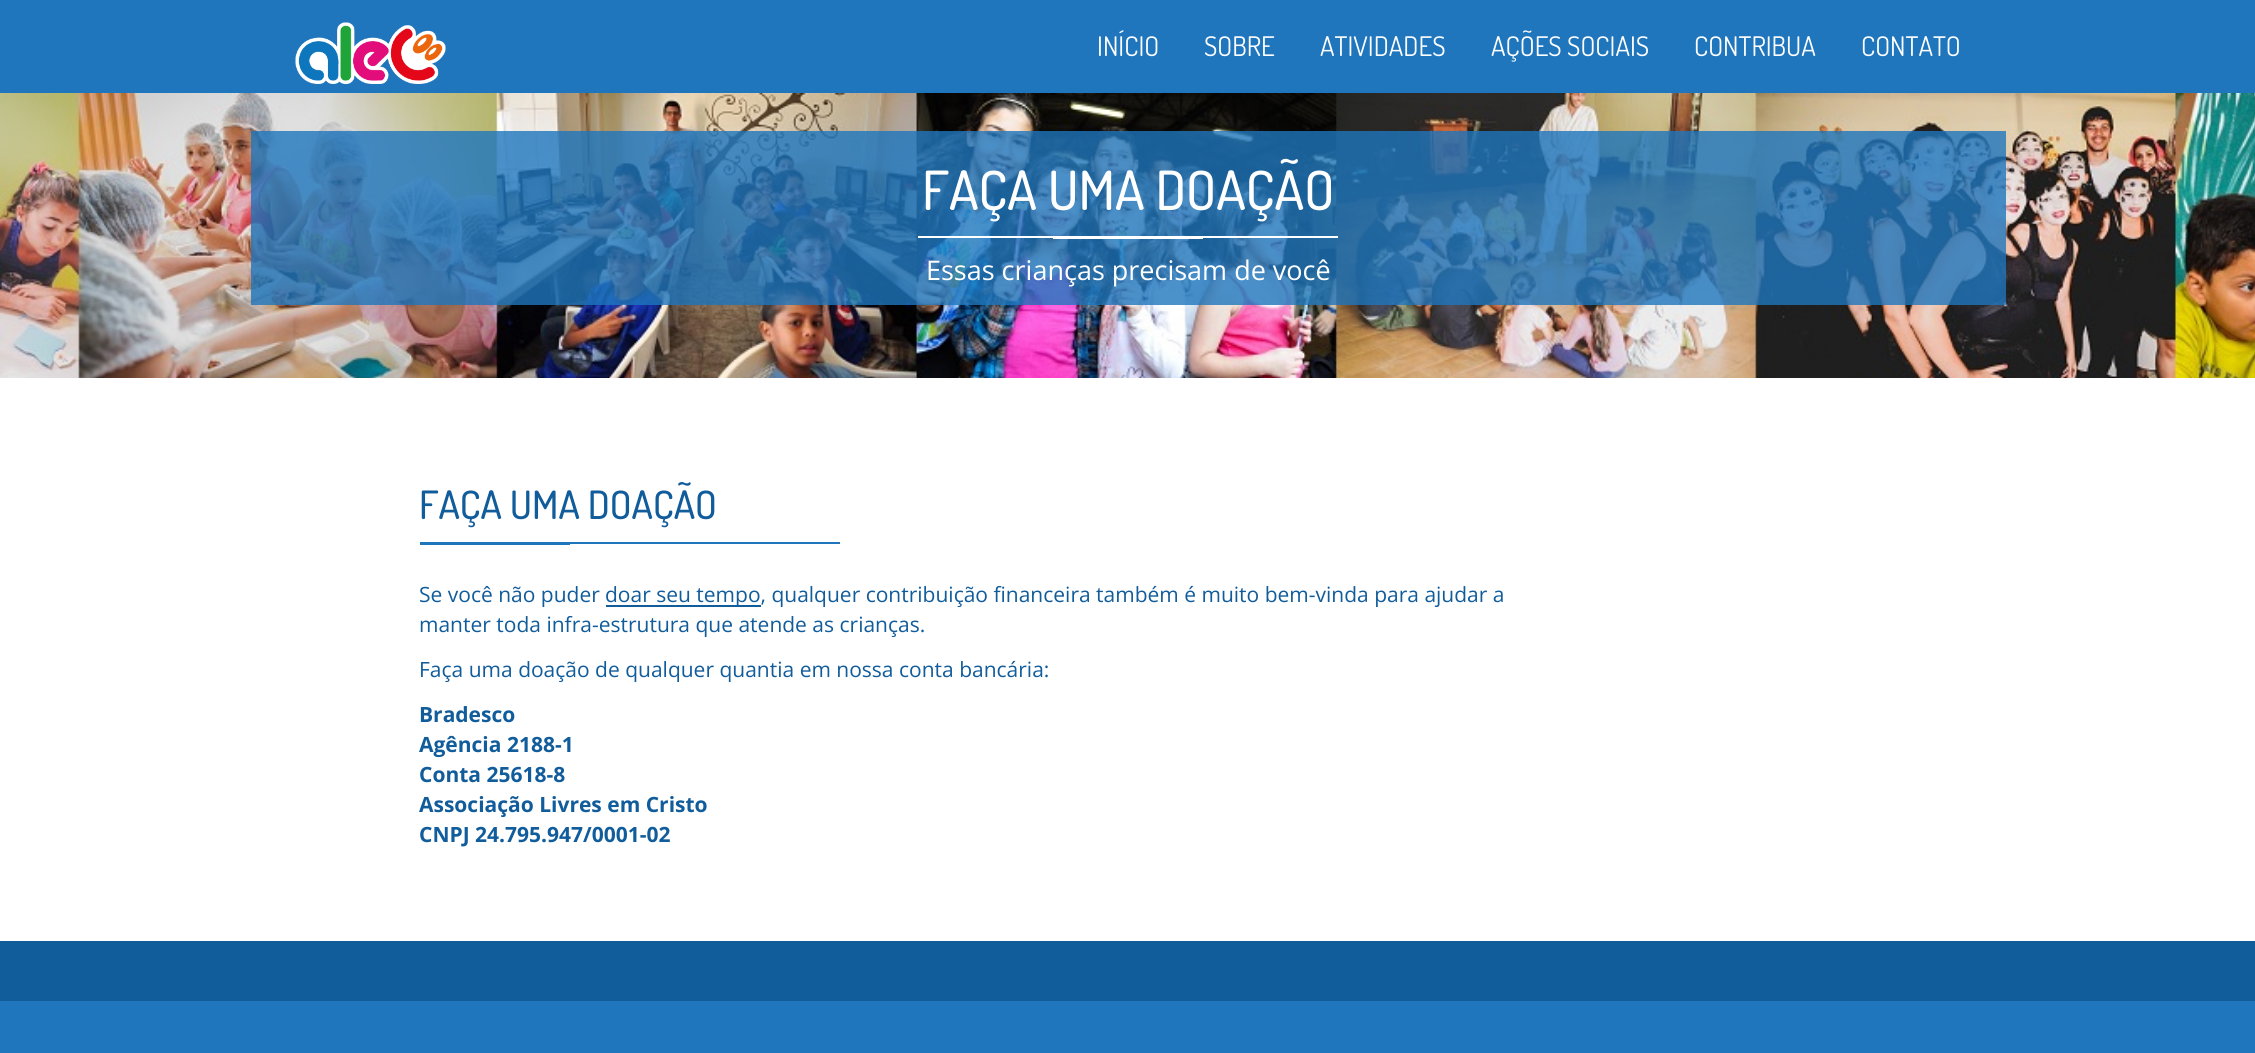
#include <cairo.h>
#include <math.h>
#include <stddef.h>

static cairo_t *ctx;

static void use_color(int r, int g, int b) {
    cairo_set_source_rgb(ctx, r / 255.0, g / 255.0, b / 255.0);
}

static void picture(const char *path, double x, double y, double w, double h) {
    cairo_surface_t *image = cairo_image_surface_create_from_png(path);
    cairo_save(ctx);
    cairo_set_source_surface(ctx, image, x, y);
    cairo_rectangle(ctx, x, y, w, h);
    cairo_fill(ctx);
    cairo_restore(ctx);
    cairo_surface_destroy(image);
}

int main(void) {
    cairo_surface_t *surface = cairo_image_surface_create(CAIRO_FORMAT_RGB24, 2255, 1053);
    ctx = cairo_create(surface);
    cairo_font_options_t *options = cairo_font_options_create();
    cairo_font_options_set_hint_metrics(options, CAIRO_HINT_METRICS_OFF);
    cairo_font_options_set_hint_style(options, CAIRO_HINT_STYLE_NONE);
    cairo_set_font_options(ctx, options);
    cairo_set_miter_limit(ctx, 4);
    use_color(255, 255, 255);
    cairo_paint(ctx);
    use_color(31, 118, 189);
    cairo_rectangle(ctx, 0, 0, 2255, 93);
    cairo_fill(ctx);
    picture("img1.png", 295, 22, 151, 62);
    cairo_select_font_face(ctx, "Dosis", CAIRO_FONT_SLANT_NORMAL, CAIRO_FONT_WEIGHT_NORMAL);
    cairo_set_font_size(ctx, 27);
    use_color(255, 255, 255);
    cairo_move_to(ctx, 1097, 56);
    cairo_show_text(ctx, "INÍCIO");
    cairo_move_to(ctx, 1204, 56);
    cairo_show_text(ctx, "SOBRE");
    cairo_move_to(ctx, 1320, 56);
    cairo_show_text(ctx, "ATIVIDADES");
    cairo_move_to(ctx, 1491, 56);
    cairo_show_text(ctx, "AÇÕES SOCIAIS");
    cairo_move_to(ctx, 1694, 56);
    cairo_show_text(ctx, "CONTRIBUA");
    cairo_move_to(ctx, 1861, 56);
    cairo_show_text(ctx, "CONTATO");
    picture("img2.png", 0, 93, 2255, 285);
    cairo_set_source_rgba(ctx, 0.122, 0.463, 0.741, 0.8);
    cairo_rectangle(ctx, 251, 131, 1755, 174);
    cairo_fill(ctx);
    cairo_select_font_face(ctx, "Dosis Medium", CAIRO_FONT_SLANT_NORMAL, CAIRO_FONT_WEIGHT_NORMAL);
    cairo_set_font_size(ctx, 54);
    use_color(255, 255, 255);
    cairo_move_to(ctx, 922, 210);
    cairo_show_text(ctx, "FAÇA UMA DOAÇÃO");
    cairo_rectangle(ctx, 918, 236, 420, 2);
    cairo_fill(ctx);
    cairo_rectangle(ctx, 1053, 238, 150, 1);
    cairo_fill(ctx);
    cairo_select_font_face(ctx, "Open Sans", CAIRO_FONT_SLANT_NORMAL, CAIRO_FONT_WEIGHT_NORMAL);
    cairo_set_font_size(ctx, 27);
    cairo_move_to(ctx, 926, 280);
    cairo_show_text(ctx, "Essas crianças precisam de você");
    cairo_select_font_face(ctx, "Dosis Medium", CAIRO_FONT_SLANT_NORMAL, CAIRO_FONT_WEIGHT_NORMAL);
    cairo_set_font_size(ctx, 39);
    use_color(17, 92, 155);
    cairo_move_to(ctx, 419, 519);
    cairo_show_text(ctx, "FAÇA UMA DOAÇÃO");
    use_color(31, 118, 189);
    cairo_rectangle(ctx, 570, 542, 270, 2);
    cairo_fill(ctx);
    cairo_rectangle(ctx, 420, 542, 150, 3);
    cairo_fill(ctx);
    cairo_select_font_face(ctx, "Open Sans", CAIRO_FONT_SLANT_NORMAL, CAIRO_FONT_WEIGHT_NORMAL);
    cairo_set_font_size(ctx, 21);
    use_color(17, 92, 155);
    cairo_move_to(ctx, 419, 602);
    cairo_show_text(ctx, "Se você não puder");
    cairo_rectangle(ctx, 606, 605, 155, 2);
    cairo_fill(ctx);
    cairo_move_to(ctx, 605, 602);
    cairo_show_text(ctx, "doar seu tempo, qualquer contribuição financeira também é muito bem-vinda para ajudar a");
    cairo_move_to(ctx, 419, 632);
    cairo_show_text(ctx, "manter toda infra-estrutura que atende as crianças.");
    cairo_move_to(ctx, 419, 677);
    cairo_show_text(ctx, "Faça uma doação de qualquer quantia em nossa conta bancária:");
    cairo_select_font_face(ctx, "Open Sans", CAIRO_FONT_SLANT_NORMAL, CAIRO_FONT_WEIGHT_BOLD);
    cairo_move_to(ctx, 419, 722);
    cairo_show_text(ctx, "Bradesco");
    cairo_move_to(ctx, 419, 752);
    cairo_show_text(ctx, "Agência 2188-1");
    cairo_move_to(ctx, 419, 782);
    cairo_show_text(ctx, "Conta 25618-8");
    cairo_move_to(ctx, 419, 812);
    cairo_show_text(ctx, "Associação Livres em Cristo");
    cairo_move_to(ctx, 419, 842);
    cairo_show_text(ctx, "CNPJ 24.795.947/0001-02");
    use_color(31, 118, 189);
    cairo_rectangle(ctx, 0, 1001, 2255, 52);
    cairo_fill(ctx);
    use_color(17, 92, 155);
    cairo_rectangle(ctx, 0, 941, 2255, 60);
    cairo_fill(ctx);
    cairo_surface_write_to_png(surface, "result.png");
    cairo_font_options_destroy(options);
    cairo_destroy(ctx);
    cairo_surface_destroy(surface);
    return 0;
}
